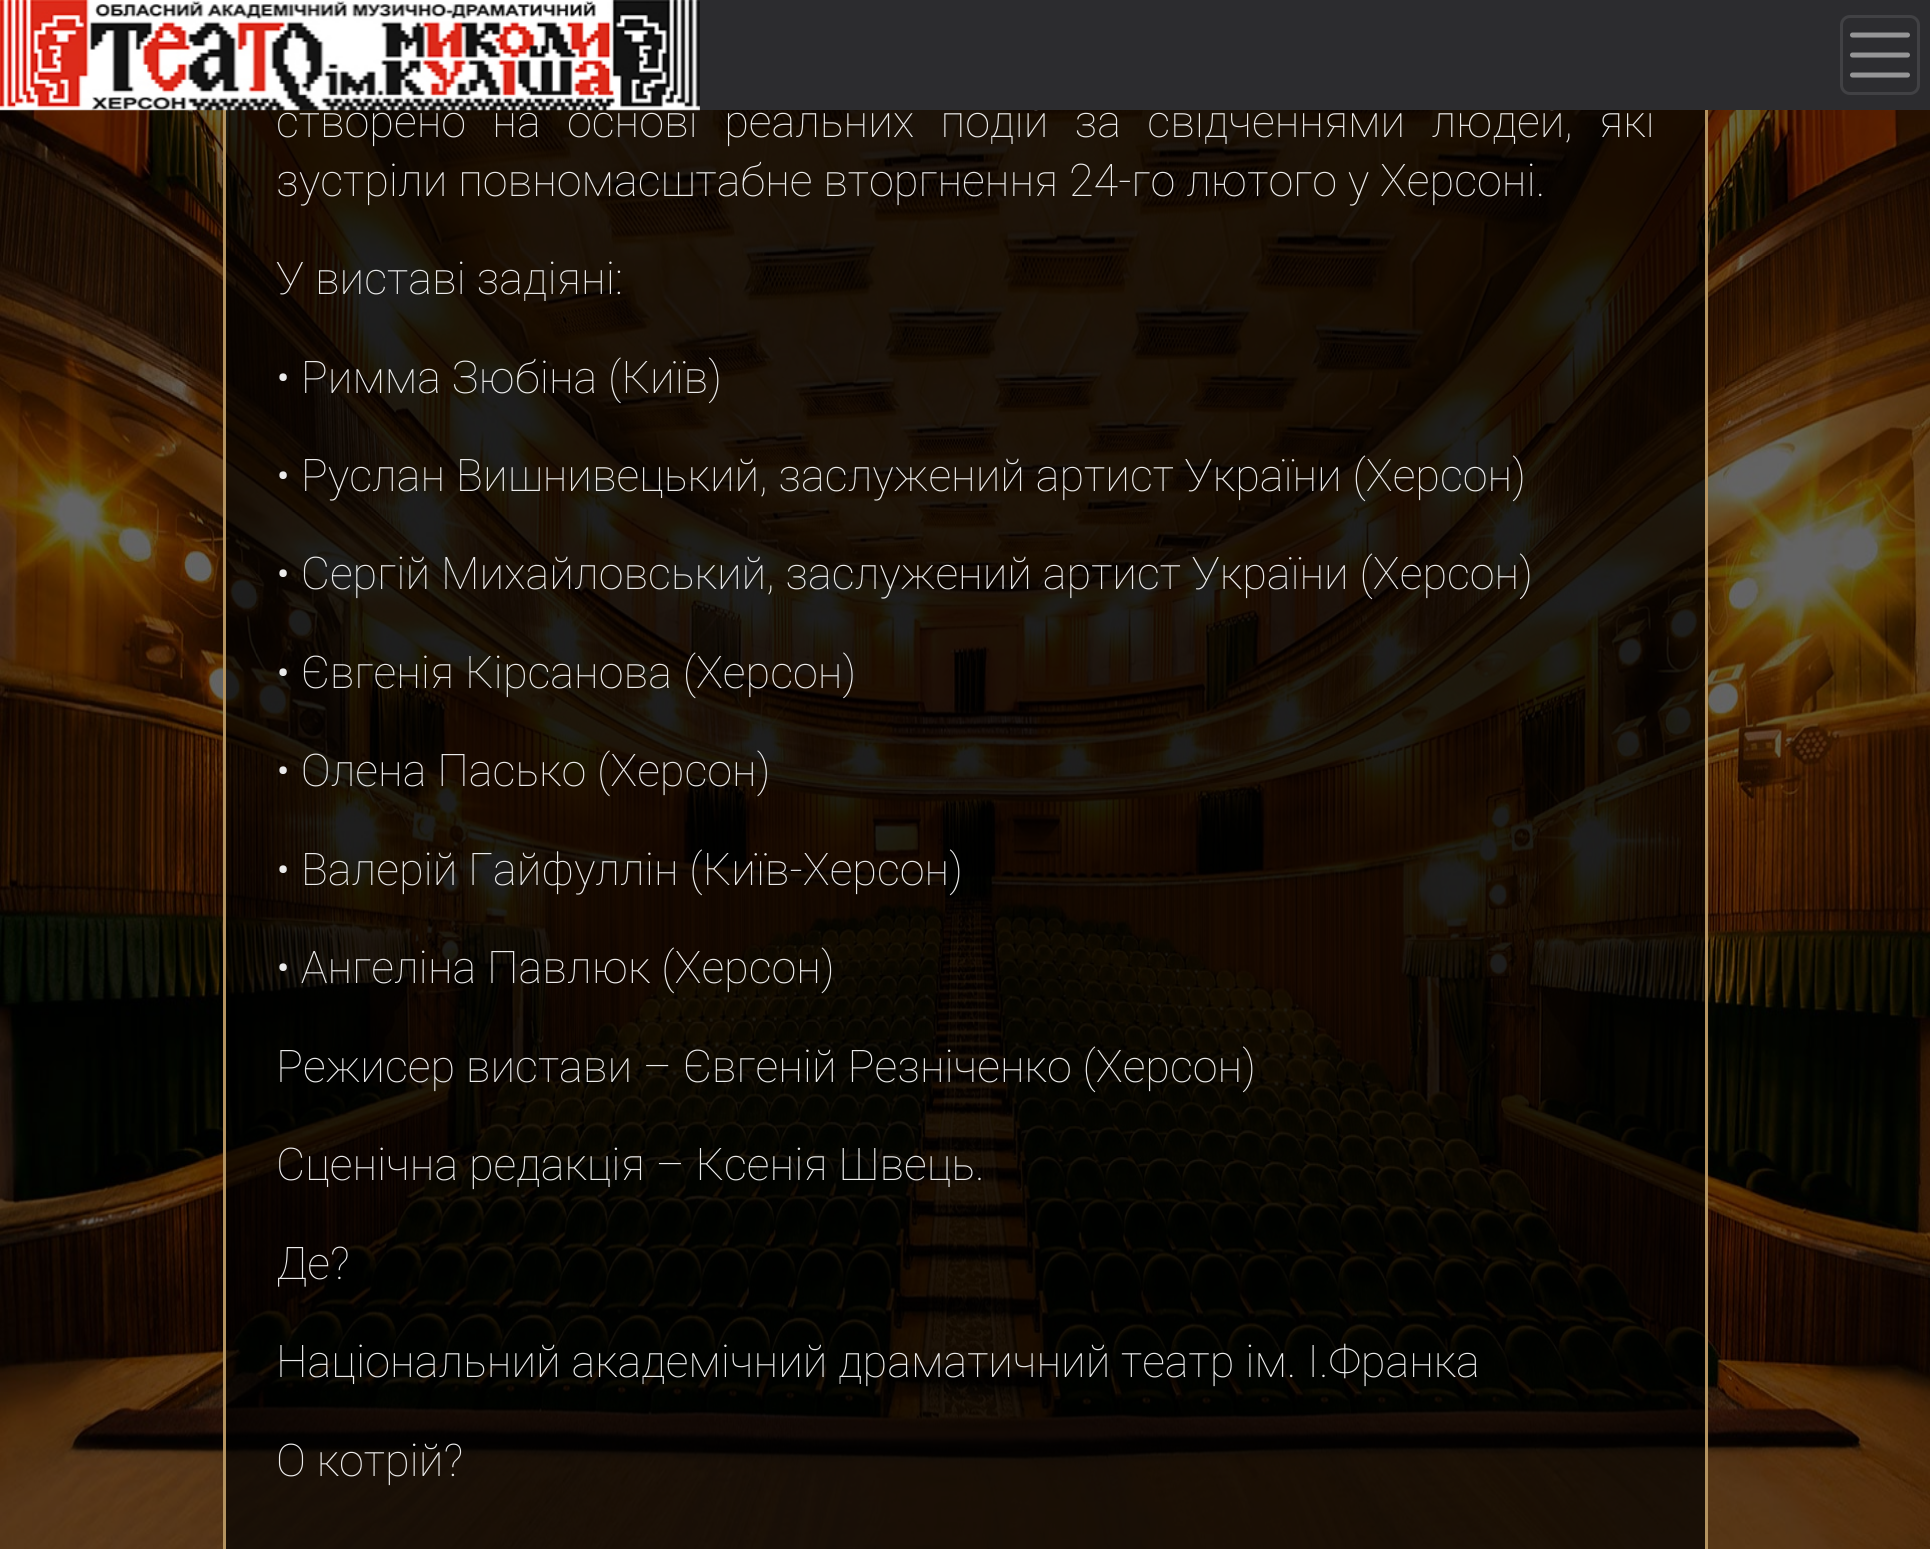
#include <cairo.h>
#include <math.h>
#include <stddef.h>

static cairo_t *ctx;

static void use_color(int r, int g, int b) {
    cairo_set_source_rgb(ctx, r / 255.0, g / 255.0, b / 255.0);
}

static void spaced_text(double x, double y, const char *s, double letter, double word) {
    cairo_move_to(ctx, x, y);
    while (*s) {
        char ch[5] = {0};
        int n = 0;
        do ch[n++] = *s++; while ((*s & 0xC0) == 0x80);
        cairo_show_text(ctx, ch);
        cairo_rel_move_to(ctx, letter + word * (*ch == ' '), 0);
    }
}

static void round_rect(double x, double y, double w, double h, double r) {
    cairo_new_sub_path(ctx);
    cairo_arc(ctx, x + w - r, y + h - r, r, 0, M_PI / 2);
    cairo_arc(ctx, x + r, y + h - r, r, M_PI / 2, M_PI);
    cairo_arc(ctx, x + r, y + r, r, M_PI, 1.5 * M_PI);
    cairo_arc(ctx, x + w - r, y + r, r, 1.5 * M_PI, 2 * M_PI);
    cairo_close_path(ctx);
}

static void picture(const char *path, double x, double y, double w, double h) {
    cairo_surface_t *image = cairo_image_surface_create_from_png(path);
    cairo_save(ctx);
    cairo_set_source_surface(ctx, image, x, y);
    cairo_rectangle(ctx, x, y, w, h);
    cairo_fill(ctx);
    cairo_restore(ctx);
    cairo_surface_destroy(image);
}

int main(void) {
    cairo_surface_t *surface = cairo_image_surface_create(CAIRO_FORMAT_RGB24, 1930, 1549);
    ctx = cairo_create(surface);
    cairo_font_options_t *options = cairo_font_options_create();
    cairo_font_options_set_hint_metrics(options, CAIRO_HINT_METRICS_OFF);
    cairo_font_options_set_hint_style(options, CAIRO_HINT_STYLE_NONE);
    cairo_set_font_options(ctx, options);
    cairo_set_miter_limit(ctx, 4);
    use_color(255, 255, 255);
    cairo_paint(ctx);
    picture("img2.png", 0, 110, 1930, 1439);
    cairo_set_source_rgba(ctx, 0, 0, 0, 0.7);
    cairo_rectangle(ctx, 226, 110, 1479, 1439);
    cairo_fill(ctx);
    cairo_rectangle(ctx, 224.5, -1.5, 1482, 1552);
    use_color(180, 147, 95);
    cairo_set_line_width(ctx, 3);
    cairo_stroke(ctx);
    cairo_select_font_face(ctx, "Roboto Thin", CAIRO_FONT_SLANT_NORMAL, CAIRO_FONT_WEIGHT_NORMAL);
    cairo_set_font_size(ctx, 45);
    use_color(235, 235, 235);
    spaced_text(276, 137, "створено на основі реальних подій за свідченнями людей, які", 0, 15.5);
    use_color(44, 44, 47);
    cairo_rectangle(ctx, 0, 0, 1930, 110);
    cairo_fill(ctx);
    picture("img1.png", 0, 0, 700, 111);
    round_rect(1841.5, 16.5, 77, 77, 8.5);
    use_color(65, 65, 68);
    cairo_stroke(ctx);
    cairo_new_path(ctx);
    cairo_move_to(ctx, 1852.5, 35);
    cairo_line_to(ctx, 1907.5, 35);
    cairo_move_to(ctx, 1852.5, 55);
    cairo_line_to(ctx, 1907.5, 55);
    cairo_move_to(ctx, 1852.5, 75);
    cairo_line_to(ctx, 1907.5, 75);
    use_color(150, 150, 151);
    cairo_set_line_width(ctx, 5);
    cairo_set_line_cap(ctx, CAIRO_LINE_CAP_ROUND);
    cairo_stroke(ctx);
    use_color(235, 235, 235);
    cairo_move_to(ctx, 276, 196);
    cairo_show_text(ctx, "зустріли повномасштабне вторгнення 24-го лютого у Херсоні.");
    cairo_move_to(ctx, 276, 294);
    cairo_show_text(ctx, "У виставі задіяні:");
    cairo_move_to(ctx, 276, 393);
    cairo_show_text(ctx, "• Римма Зюбіна (Київ)");
    cairo_move_to(ctx, 276, 491);
    cairo_show_text(ctx, "• Руслан Вишнивецький, заслужений артист України (Херсон)");
    cairo_move_to(ctx, 276, 589);
    cairo_show_text(ctx, "• Сергій Михайловський, заслужений артист України (Херсон)");
    cairo_move_to(ctx, 276, 688);
    cairo_show_text(ctx, "• Євгенія Кірсанова (Херсон)");
    cairo_move_to(ctx, 276, 786);
    cairo_show_text(ctx, "• Олена Пасько (Херсон)");
    cairo_move_to(ctx, 276, 885);
    cairo_show_text(ctx, "• Валерій Гайфуллін (Київ-Херсон)");
    cairo_move_to(ctx, 276, 983);
    cairo_show_text(ctx, "• Ангеліна Павлюк (Херсон)");
    cairo_move_to(ctx, 276, 1082);
    cairo_show_text(ctx, "Режисер вистави – Євгеній Резніченко (Херсон)");
    cairo_move_to(ctx, 276, 1180);
    cairo_show_text(ctx, "Сценічна редакція – Ксенія Швець.");
    cairo_move_to(ctx, 276, 1279);
    cairo_show_text(ctx, "Де?");
    cairo_move_to(ctx, 276, 1377);
    cairo_show_text(ctx, "Національний академічний драматичний театр ім. І.Франка");
    cairo_move_to(ctx, 276, 1476);
    cairo_show_text(ctx, "О котрій?");
    cairo_surface_write_to_png(surface, "result.png");
    cairo_font_options_destroy(options);
    cairo_destroy(ctx);
    cairo_surface_destroy(surface);
    return 0;
}
